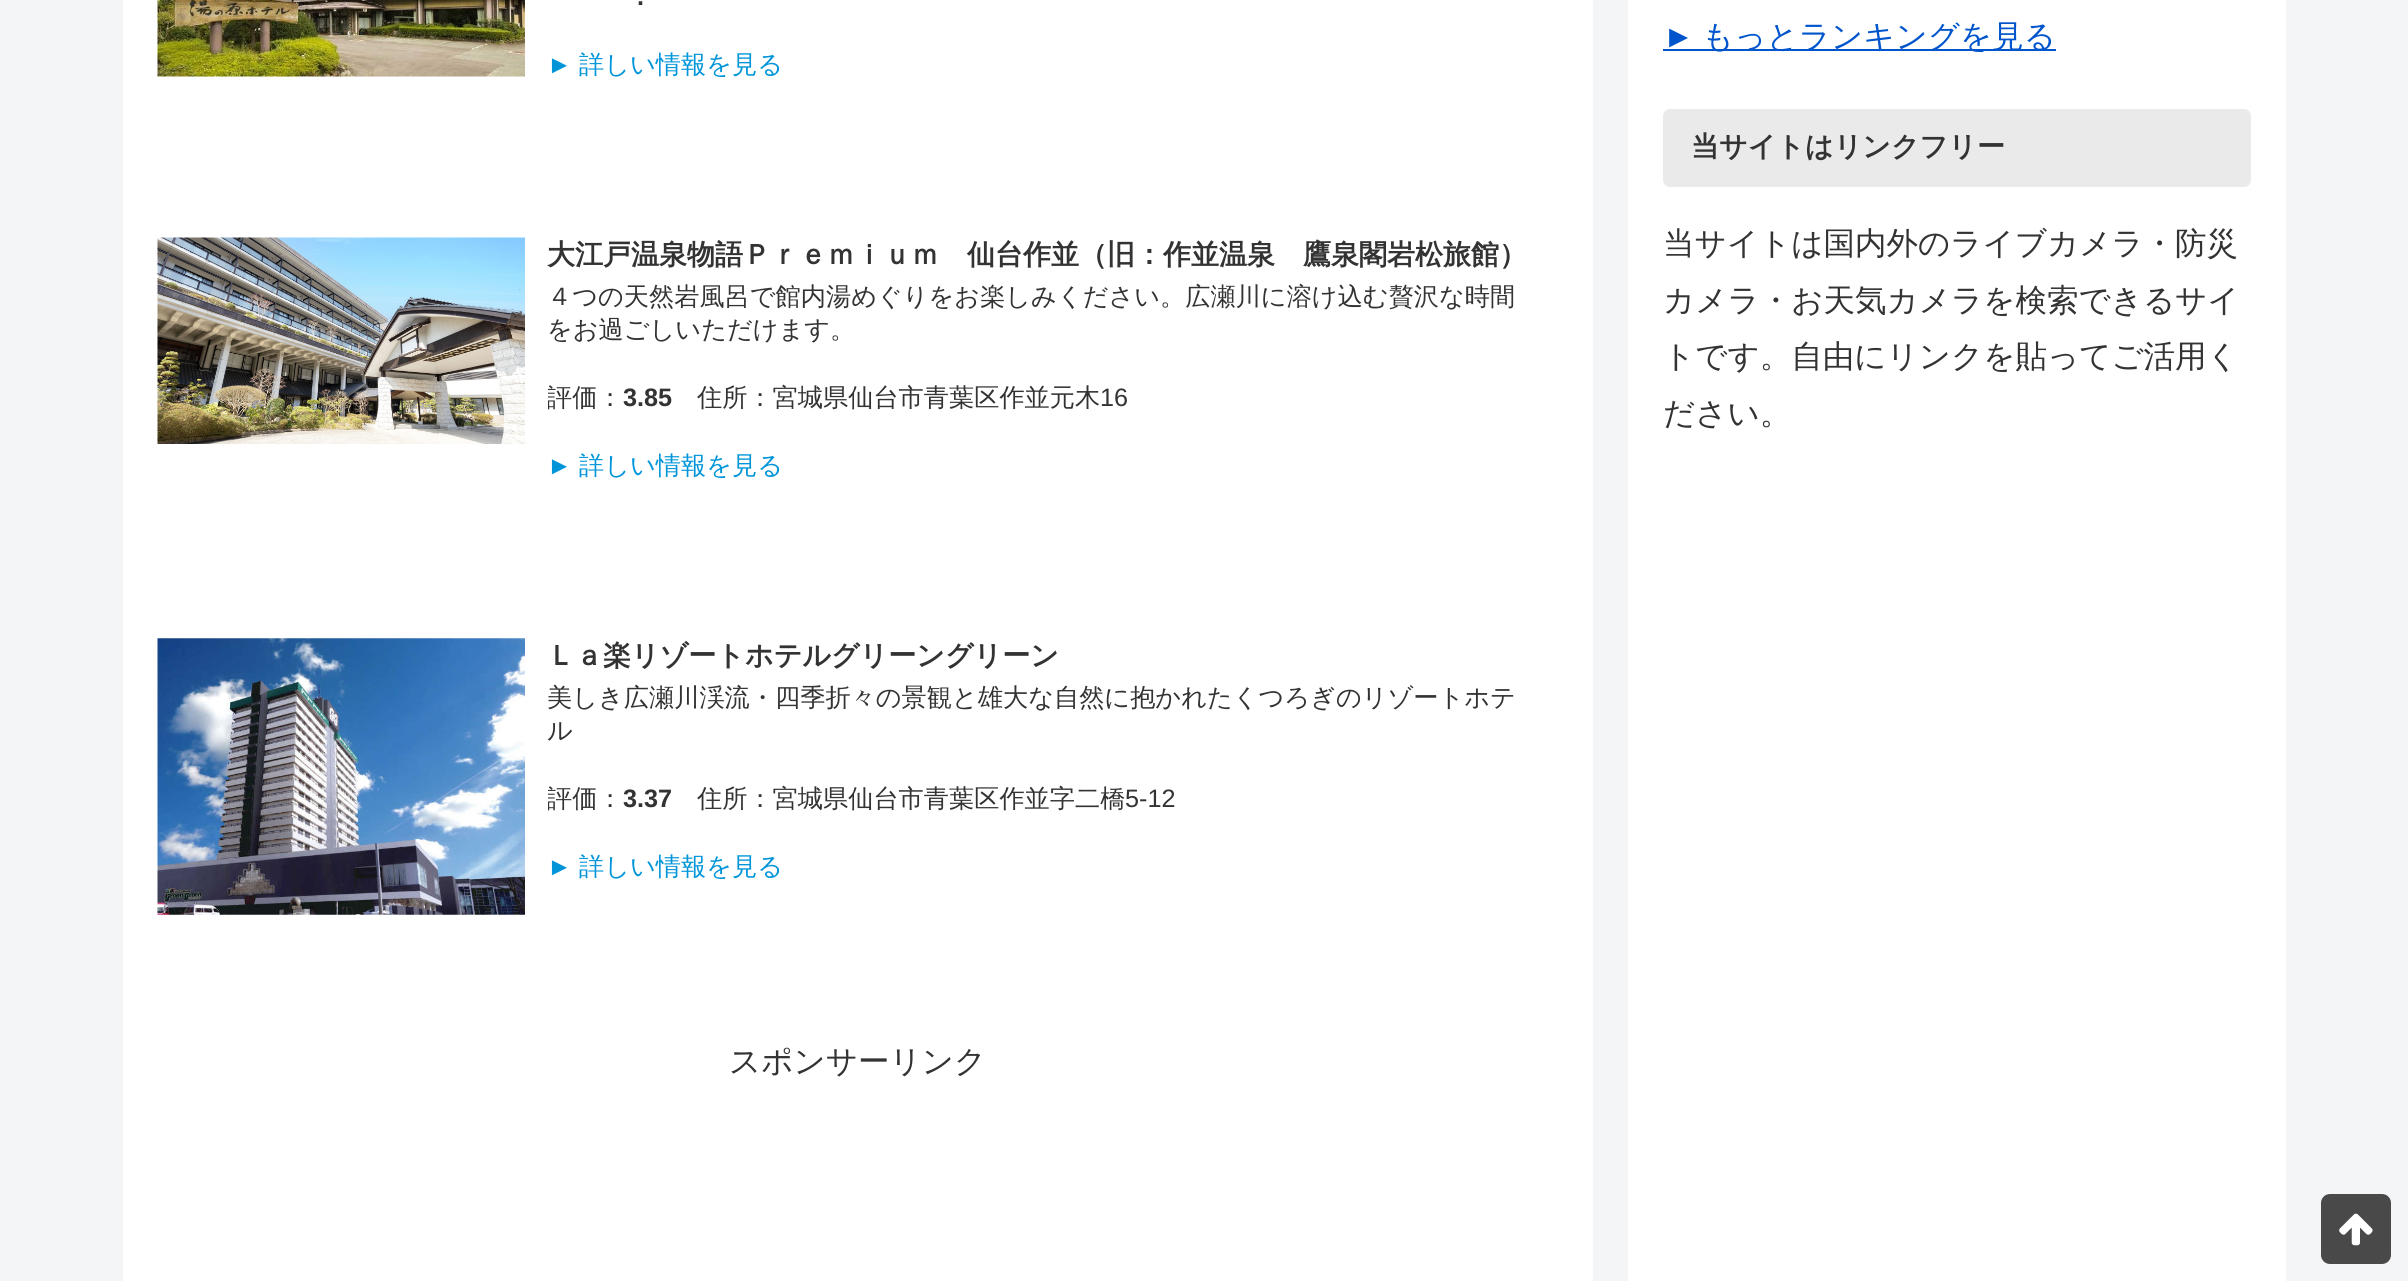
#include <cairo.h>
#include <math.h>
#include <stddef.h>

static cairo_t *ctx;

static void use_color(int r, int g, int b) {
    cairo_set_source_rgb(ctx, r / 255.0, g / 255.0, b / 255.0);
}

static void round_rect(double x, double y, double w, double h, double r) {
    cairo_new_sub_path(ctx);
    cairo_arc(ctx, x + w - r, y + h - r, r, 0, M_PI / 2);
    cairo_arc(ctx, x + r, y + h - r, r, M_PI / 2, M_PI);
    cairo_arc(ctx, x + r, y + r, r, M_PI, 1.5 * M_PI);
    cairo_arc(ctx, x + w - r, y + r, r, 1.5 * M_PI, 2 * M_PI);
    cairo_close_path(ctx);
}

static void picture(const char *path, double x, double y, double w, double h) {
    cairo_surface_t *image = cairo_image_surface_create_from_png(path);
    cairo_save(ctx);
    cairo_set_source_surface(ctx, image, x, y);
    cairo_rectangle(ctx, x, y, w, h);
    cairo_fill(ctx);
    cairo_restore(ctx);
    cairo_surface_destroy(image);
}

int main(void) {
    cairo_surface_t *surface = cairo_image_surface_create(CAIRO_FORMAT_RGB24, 2408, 1281);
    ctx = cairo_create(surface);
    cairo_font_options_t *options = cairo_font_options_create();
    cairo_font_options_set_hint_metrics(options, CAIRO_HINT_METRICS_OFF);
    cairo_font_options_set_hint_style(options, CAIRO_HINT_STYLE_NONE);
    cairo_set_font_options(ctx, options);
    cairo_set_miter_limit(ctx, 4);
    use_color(244, 245, 247);
    cairo_paint(ctx);
    use_color(255, 255, 255);
    cairo_rectangle(ctx, 123, 0, 1470, 1281);
    cairo_fill(ctx);
    picture("img1.png", 157, 0, 368, 77);
    cairo_select_font_face(ctx, "Liberation Sans", CAIRO_FONT_SLANT_NORMAL, CAIRO_FONT_WEIGHT_BOLD);
    cairo_set_font_size(ctx, 25.2);
    use_color(51, 51, 51);
    cairo_move_to(ctx, 637, 5);
    cairo_show_text(ctx, ".");
    cairo_select_font_face(ctx, "Liberation Sans", CAIRO_FONT_SLANT_NORMAL, CAIRO_FONT_WEIGHT_NORMAL);
    use_color(0, 149, 217);
    cairo_move_to(ctx, 547, 73);
    cairo_show_text(ctx, "►");
    cairo_select_font_face(ctx, "WenQuanYi Zen Hei Medium", CAIRO_FONT_SLANT_NORMAL, CAIRO_FONT_WEIGHT_NORMAL);
    cairo_move_to(ctx, 579, 73);
    cairo_show_text(ctx, "詳しい情報を見る");
    picture("img2.png", 157, 237, 368, 207);
    cairo_select_font_face(ctx, "WenQuanYi Zen Hei", CAIRO_FONT_SLANT_NORMAL, CAIRO_FONT_WEIGHT_BOLD);
    cairo_set_font_size(ctx, 28);
    use_color(51, 51, 51);
    cairo_move_to(ctx, 547, 264);
    cairo_show_text(ctx, "大江戸温泉物語Ｐｒｅｍｉｕｍ　仙台作並（旧：作並温泉　鷹泉閣岩松旅館）");
    cairo_select_font_face(ctx, "WenQuanYi Zen Hei Medium", CAIRO_FONT_SLANT_NORMAL, CAIRO_FONT_WEIGHT_NORMAL);
    cairo_set_font_size(ctx, 25.2);
    cairo_move_to(ctx, 547, 305);
    cairo_show_text(ctx, "４つの天然岩風呂で館内湯めぐりをお楽しみください。広瀬川に溶け込む贅沢な時間");
    cairo_move_to(ctx, 547, 338);
    cairo_show_text(ctx, "をお過ごしいただけます。");
    cairo_save(ctx);
    cairo_rectangle(ctx, 548, 280, 989, 238);
    cairo_clip(ctx);
    cairo_move_to(ctx, 547, 406);
    cairo_show_text(ctx, "評価：");
    cairo_restore(ctx);
    cairo_select_font_face(ctx, "Liberation Sans", CAIRO_FONT_SLANT_NORMAL, CAIRO_FONT_WEIGHT_BOLD);
    cairo_move_to(ctx, 623, 406);
    cairo_show_text(ctx, "3.85");
    cairo_select_font_face(ctx, "WenQuanYi Zen Hei Medium", CAIRO_FONT_SLANT_NORMAL, CAIRO_FONT_WEIGHT_NORMAL);
    cairo_move_to(ctx, 697, 406);
    cairo_show_text(ctx, "住所：宮城県仙台市青葉区作並元木");
    cairo_select_font_face(ctx, "Liberation Sans", CAIRO_FONT_SLANT_NORMAL, CAIRO_FONT_WEIGHT_NORMAL);
    cairo_move_to(ctx, 1100, 406);
    cairo_show_text(ctx, "16");
    use_color(0, 149, 217);
    cairo_move_to(ctx, 547, 474);
    cairo_show_text(ctx, "►");
    cairo_select_font_face(ctx, "WenQuanYi Zen Hei Medium", CAIRO_FONT_SLANT_NORMAL, CAIRO_FONT_WEIGHT_NORMAL);
    cairo_move_to(ctx, 579, 474);
    cairo_show_text(ctx, "詳しい情報を見る");
    picture("img3.png", 157, 638, 368, 277);
    cairo_select_font_face(ctx, "WenQuanYi Zen Hei", CAIRO_FONT_SLANT_NORMAL, CAIRO_FONT_WEIGHT_BOLD);
    cairo_set_font_size(ctx, 28);
    use_color(51, 51, 51);
    cairo_move_to(ctx, 547, 665);
    cairo_show_text(ctx, "Ｌａ楽リゾートホテルグリーングリーン");
    cairo_select_font_face(ctx, "WenQuanYi Zen Hei Medium", CAIRO_FONT_SLANT_NORMAL, CAIRO_FONT_WEIGHT_NORMAL);
    cairo_set_font_size(ctx, 25.2);
    cairo_move_to(ctx, 547, 706);
    cairo_show_text(ctx, "美しき広瀬川渓流・四季折々の景観と雄大な自然に抱かれたくつろぎのリゾートホテ");
    cairo_move_to(ctx, 547, 739);
    cairo_show_text(ctx, "ル");
    cairo_save(ctx);
    cairo_rectangle(ctx, 548, 681, 989, 238);
    cairo_clip(ctx);
    cairo_move_to(ctx, 547, 807);
    cairo_show_text(ctx, "評価：");
    cairo_restore(ctx);
    cairo_select_font_face(ctx, "Liberation Sans", CAIRO_FONT_SLANT_NORMAL, CAIRO_FONT_WEIGHT_BOLD);
    cairo_move_to(ctx, 623, 807);
    cairo_show_text(ctx, "3.37");
    cairo_select_font_face(ctx, "WenQuanYi Zen Hei Medium", CAIRO_FONT_SLANT_NORMAL, CAIRO_FONT_WEIGHT_NORMAL);
    cairo_move_to(ctx, 697, 807);
    cairo_show_text(ctx, "住所：宮城県仙台市青葉区作並字二橋");
    cairo_select_font_face(ctx, "Liberation Sans", CAIRO_FONT_SLANT_NORMAL, CAIRO_FONT_WEIGHT_NORMAL);
    cairo_move_to(ctx, 1125, 807);
    cairo_show_text(ctx, "5-12");
    use_color(0, 149, 217);
    cairo_move_to(ctx, 547, 875);
    cairo_show_text(ctx, "►");
    cairo_select_font_face(ctx, "WenQuanYi Zen Hei Medium", CAIRO_FONT_SLANT_NORMAL, CAIRO_FONT_WEIGHT_NORMAL);
    cairo_move_to(ctx, 579, 875);
    cairo_show_text(ctx, "詳しい情報を見る");
    cairo_set_font_size(ctx, 31.5);
    use_color(51, 51, 51);
    cairo_move_to(ctx, 729, 1072);
    cairo_show_text(ctx, "スポンサーリンク");
    use_color(255, 255, 255);
    cairo_rectangle(ctx, 1628, 0, 658, 1281);
    cairo_fill(ctx);
    cairo_select_font_face(ctx, "Liberation Sans", CAIRO_FONT_SLANT_NORMAL, CAIRO_FONT_WEIGHT_NORMAL);
    use_color(0, 85, 204);
    cairo_move_to(ctx, 1663, 47);
    cairo_show_text(ctx, "►");
    cairo_rectangle(ctx, 1663, 49, 393, 2);
    cairo_fill(ctx);
    cairo_select_font_face(ctx, "WenQuanYi Zen Hei Medium", CAIRO_FONT_SLANT_NORMAL, CAIRO_FONT_WEIGHT_NORMAL);
    cairo_move_to(ctx, 1702, 47);
    cairo_show_text(ctx, "もっとランキングを見る");
    use_color(234, 234, 234);
    round_rect(1663, 109, 588, 78, 7);
    cairo_fill(ctx);
    cairo_select_font_face(ctx, "WenQuanYi Zen Hei", CAIRO_FONT_SLANT_NORMAL, CAIRO_FONT_WEIGHT_BOLD);
    cairo_set_font_size(ctx, 28);
    use_color(51, 51, 51);
    cairo_move_to(ctx, 1691, 156);
    cairo_show_text(ctx, "当サイトはリンクフリー");
    cairo_select_font_face(ctx, "WenQuanYi Zen Hei Medium", CAIRO_FONT_SLANT_NORMAL, CAIRO_FONT_WEIGHT_NORMAL);
    cairo_set_font_size(ctx, 31.5);
    cairo_move_to(ctx, 1663, 254);
    cairo_show_text(ctx, "当サイトは国内外のライブカメラ・防災");
    cairo_move_to(ctx, 1663, 311);
    cairo_show_text(ctx, "カメラ・お天気カメラを検索できるサイ");
    cairo_move_to(ctx, 1663, 367);
    cairo_show_text(ctx, "トです。自由にリンクを貼ってご活用く");
    cairo_move_to(ctx, 1663, 424);
    cairo_show_text(ctx, "ださい。");
    use_color(73, 73, 73);
    round_rect(2321, 1194, 70, 70, 9);
    cairo_fill(ctx);
    picture("img4.png", 2339, 1213, 34, 33);
    cairo_surface_write_to_png(surface, "result.png");
    cairo_font_options_destroy(options);
    cairo_destroy(ctx);
    cairo_surface_destroy(surface);
    return 0;
}
